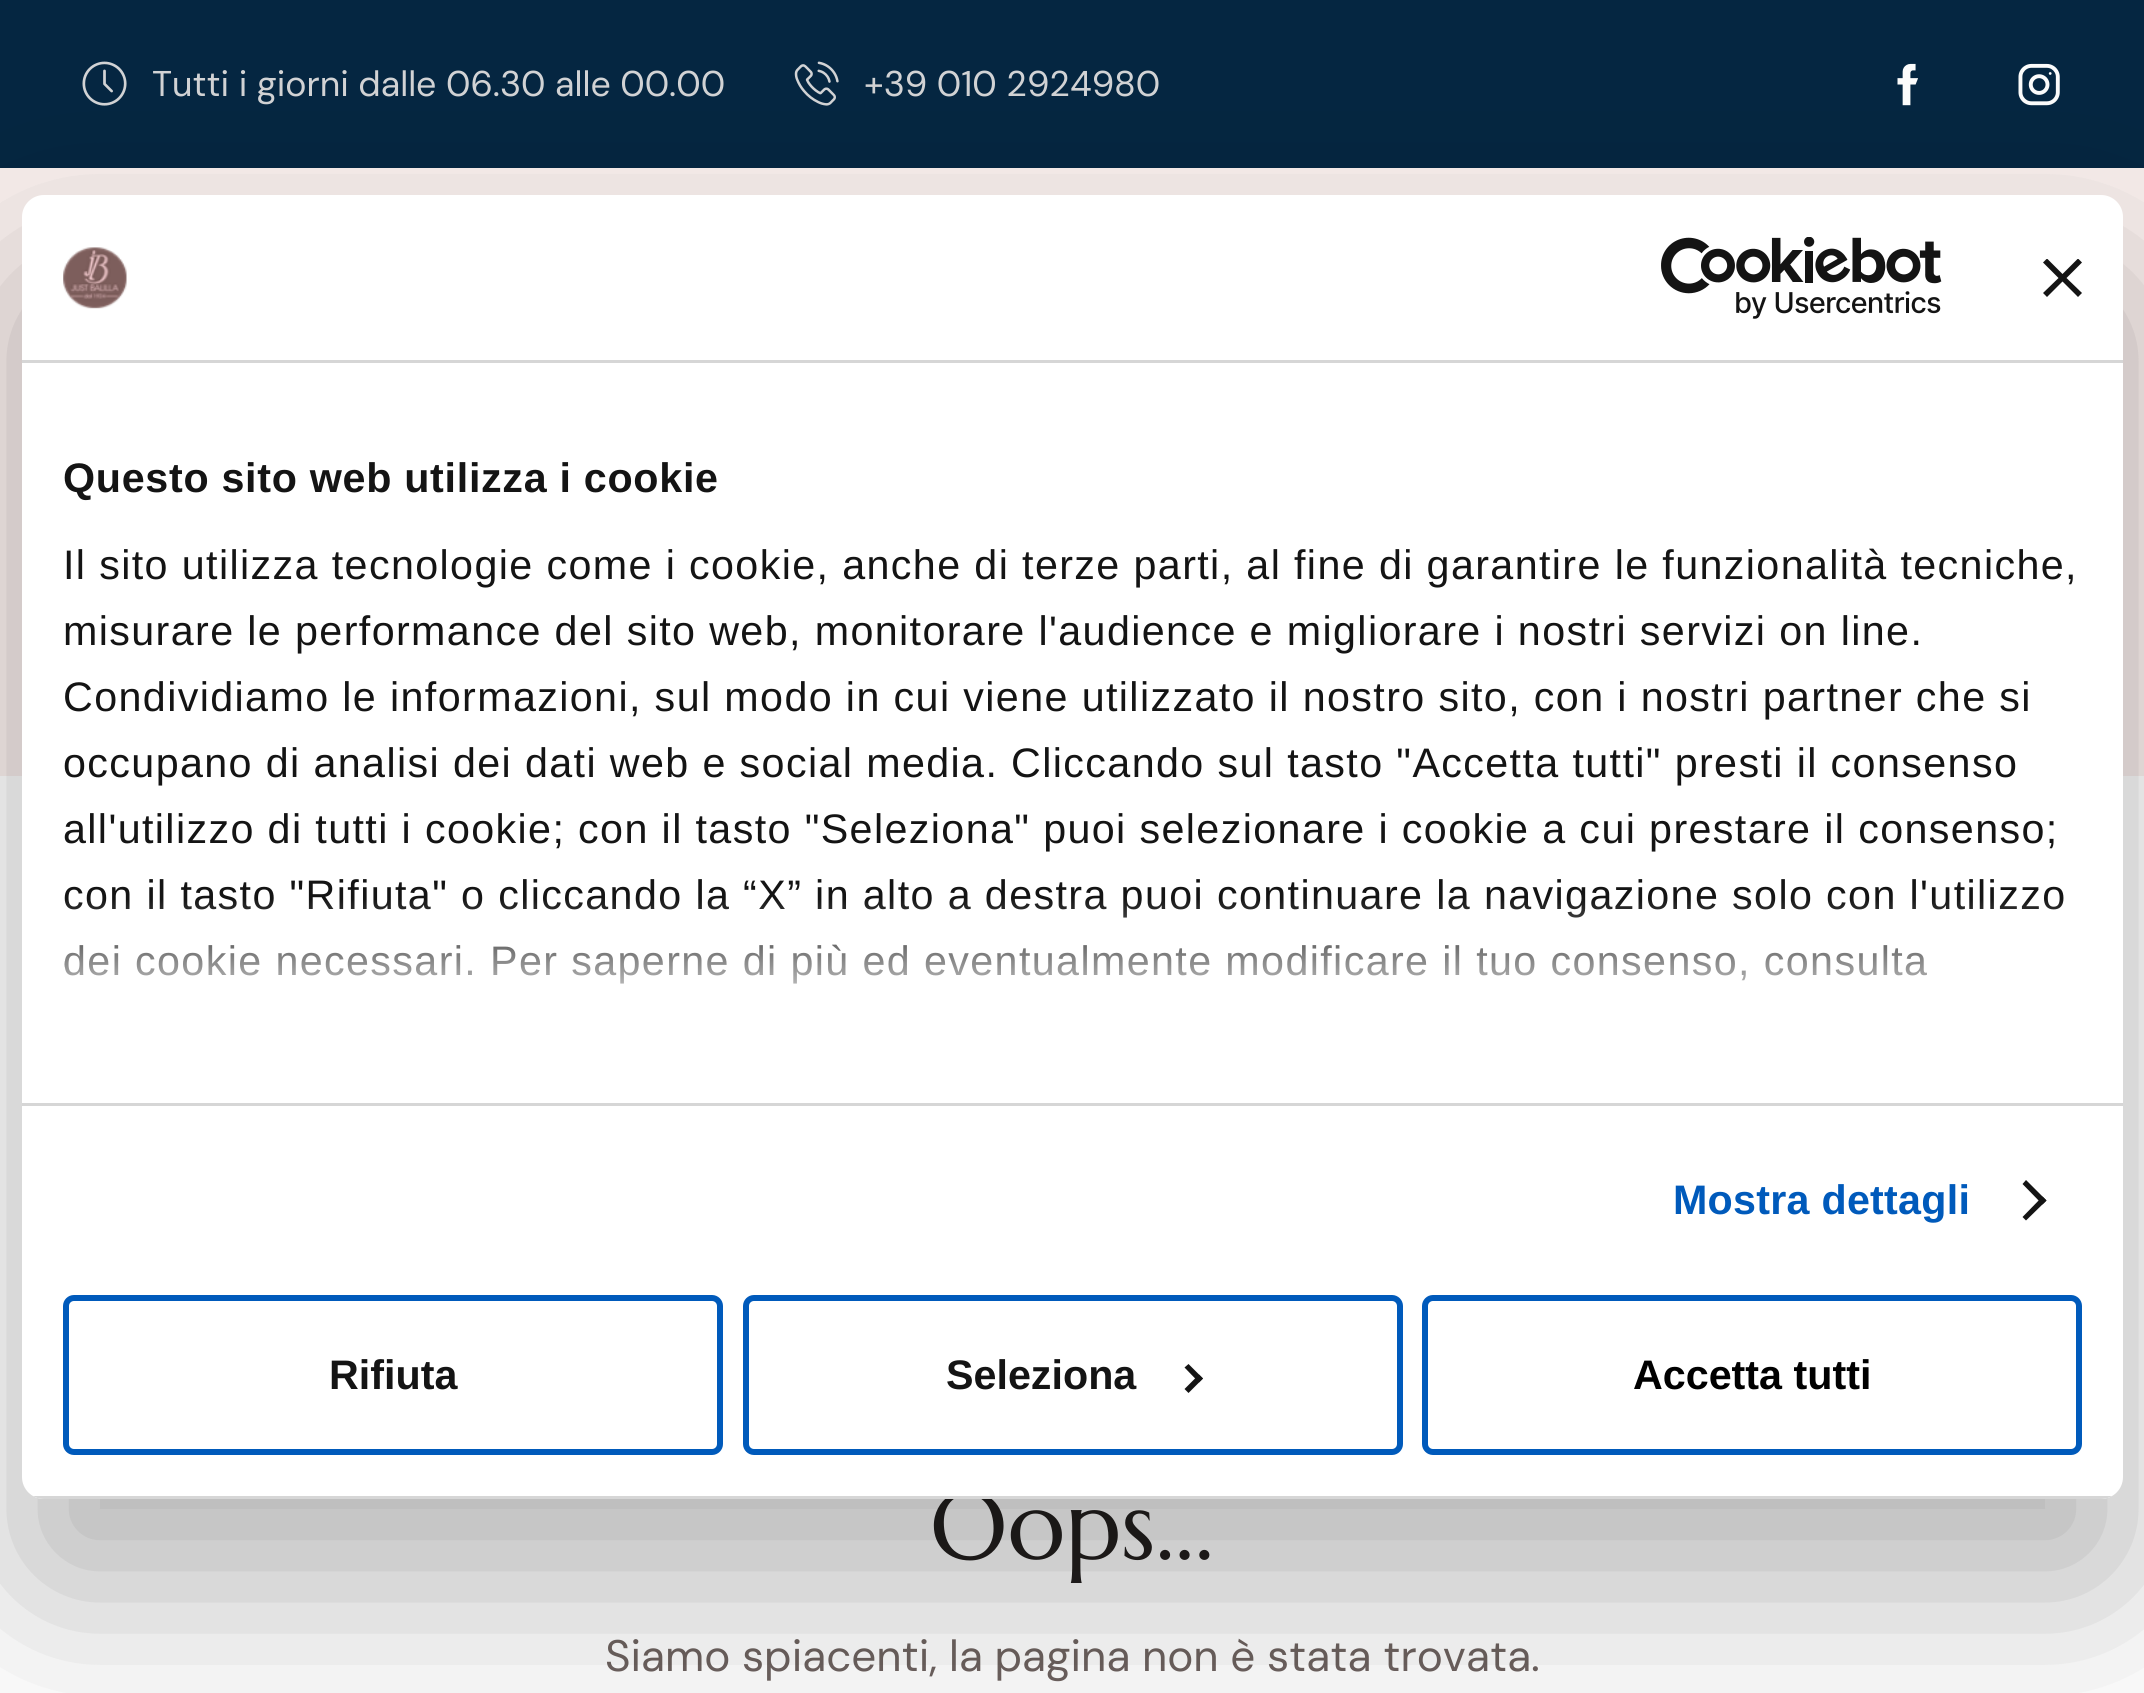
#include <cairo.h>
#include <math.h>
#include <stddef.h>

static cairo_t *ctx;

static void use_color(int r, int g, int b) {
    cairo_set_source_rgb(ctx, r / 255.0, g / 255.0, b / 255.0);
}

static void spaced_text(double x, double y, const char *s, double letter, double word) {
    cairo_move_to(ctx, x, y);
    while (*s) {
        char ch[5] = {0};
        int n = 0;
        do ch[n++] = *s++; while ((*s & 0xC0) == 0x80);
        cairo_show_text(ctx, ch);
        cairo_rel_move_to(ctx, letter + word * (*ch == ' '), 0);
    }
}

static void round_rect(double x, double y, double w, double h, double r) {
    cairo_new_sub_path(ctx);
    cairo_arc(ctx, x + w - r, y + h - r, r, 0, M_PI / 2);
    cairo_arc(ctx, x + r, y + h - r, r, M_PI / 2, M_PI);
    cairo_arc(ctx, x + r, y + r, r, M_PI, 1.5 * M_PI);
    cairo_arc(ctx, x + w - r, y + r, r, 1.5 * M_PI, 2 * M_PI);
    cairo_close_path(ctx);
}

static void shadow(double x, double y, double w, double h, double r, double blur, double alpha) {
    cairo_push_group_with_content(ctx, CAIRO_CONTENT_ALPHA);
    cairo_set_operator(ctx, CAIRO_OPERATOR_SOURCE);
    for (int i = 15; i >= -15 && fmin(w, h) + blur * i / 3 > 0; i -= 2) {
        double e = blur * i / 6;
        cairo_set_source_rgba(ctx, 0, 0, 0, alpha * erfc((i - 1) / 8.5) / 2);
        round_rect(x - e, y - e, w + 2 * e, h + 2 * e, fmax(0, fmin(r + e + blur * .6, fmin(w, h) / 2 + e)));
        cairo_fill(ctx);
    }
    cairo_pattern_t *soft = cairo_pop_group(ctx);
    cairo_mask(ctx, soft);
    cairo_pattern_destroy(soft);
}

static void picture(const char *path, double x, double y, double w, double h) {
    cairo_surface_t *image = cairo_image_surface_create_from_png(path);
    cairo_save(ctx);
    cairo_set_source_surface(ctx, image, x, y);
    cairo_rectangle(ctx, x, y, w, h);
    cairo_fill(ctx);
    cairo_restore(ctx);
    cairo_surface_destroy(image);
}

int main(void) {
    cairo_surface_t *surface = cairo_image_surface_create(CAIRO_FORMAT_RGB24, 2144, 1693);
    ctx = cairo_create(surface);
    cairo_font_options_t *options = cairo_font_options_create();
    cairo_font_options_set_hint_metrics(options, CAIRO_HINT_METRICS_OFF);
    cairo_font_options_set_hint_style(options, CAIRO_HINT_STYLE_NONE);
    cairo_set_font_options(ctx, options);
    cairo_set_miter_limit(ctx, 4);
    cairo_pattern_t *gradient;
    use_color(249, 239, 237);
    cairo_paint(ctx);
    use_color(5, 38, 65);
    cairo_rectangle(ctx, 0, 0, 2144, 168);
    cairo_fill(ctx);
    picture("img1.png", 82, 61, 45, 45);
    cairo_select_font_face(ctx, "DM Sans", CAIRO_FONT_SLANT_NORMAL, CAIRO_FONT_WEIGHT_NORMAL);
    cairo_set_font_size(ctx, 35.75);
    use_color(210, 211, 213);
    cairo_move_to(ctx, 152, 96);
    cairo_show_text(ctx, "Tutti i giorni dalle 06.30 alle 00.00");
    picture("img2.png", 794, 61, 45, 45);
    cairo_move_to(ctx, 864, 96);
    cairo_show_text(ctx, "+39 010 2924980");
    picture("img3.png", 1897, 63, 21, 43);
    picture("img4.png", 2018, 63, 42, 43);
    use_color(255, 255, 255);
    cairo_rectangle(ctx, 0, 776, 2144, 917);
    cairo_fill(ctx);
    cairo_select_font_face(ctx, "Marcellus", CAIRO_FONT_SLANT_NORMAL, CAIRO_FONT_WEIGHT_NORMAL);
    cairo_set_font_size(ctx, 96);
    use_color(34, 31, 30);
    cairo_move_to(ctx, 930, 1559);
    cairo_show_text(ctx, "Oops...");
    cairo_select_font_face(ctx, "DM Sans", CAIRO_FONT_SLANT_NORMAL, CAIRO_FONT_WEIGHT_NORMAL);
    cairo_set_font_size(ctx, 44);
    use_color(109, 98, 95);
    cairo_move_to(ctx, 605, 1671);
    cairo_show_text(ctx, "Siamo spiacenti, la pagina non è stata trovata.");
    use_color(0, 0, 0);
    shadow(22, 283, 2101, 1304, 22, 93.5, 0.3);
    use_color(255, 255, 255);
    round_rect(22, 195, 2101, 1304, 22);
    cairo_fill(ctx);
    use_color(214, 214, 214);
    cairo_rectangle(ctx, 22, 360, 2101, 3);
    cairo_fill(ctx);
    picture("img5.png", 63, 247, 64, 62);
    picture("img6.png", 1661, 237, 281, 82);
    cairo_save(ctx);
    cairo_rectangle(ctx, 2043, 259, 39, 38);
    cairo_clip(ctx);
    use_color(20, 20, 20);
    cairo_new_path(ctx);
    cairo_move_to(ctx, 2082, 262.5);
    cairo_line_to(ctx, 2078, 258.5);
    cairo_line_to(ctx, 2062.5, 274);
    cairo_line_to(ctx, 2047, 258.5);
    cairo_line_to(ctx, 2043, 262.5);
    cairo_line_to(ctx, 2058.5, 278);
    cairo_line_to(ctx, 2043, 293);
    cairo_line_to(ctx, 2047, 297);
    cairo_line_to(ctx, 2062.5, 281.5);
    cairo_line_to(ctx, 2078, 297);
    cairo_line_to(ctx, 2082, 293);
    cairo_line_to(ctx, 2066.5, 278);
    cairo_close_path(ctx);
    cairo_fill(ctx);
    cairo_restore(ctx);
    cairo_rectangle(ctx, 22, 1103, 2101, 3);
    cairo_fill(ctx);
    cairo_select_font_face(ctx, "Liberation Sans", CAIRO_FONT_SLANT_NORMAL, CAIRO_FONT_WEIGHT_BOLD);
    cairo_set_font_size(ctx, 41.25);
    use_color(20, 20, 20);
    spaced_text(63, 492, "Questo sito web utilizza i cookie", 0.7, 0);
    cairo_select_font_face(ctx, "Liberation Sans", CAIRO_FONT_SLANT_NORMAL, CAIRO_FONT_WEIGHT_NORMAL);
    spaced_text(63, 579, "Il sito utilizza tecnologie come i cookie, anche di terze parti, al fine di garantire le funzionalità tecniche,", 1.38, 0);
    spaced_text(63, 645, "misurare le performance del sito web, monitorare l'audience e migliorare i nostri servizi on line.", 1.38, 0);
    spaced_text(63, 711, "Condividiamo le informazioni, sul modo in cui viene utilizzato il nostro sito, con i nostri partner che si", 1.38, 0);
    spaced_text(63, 777, "occupano di analisi dei dati web e social media. Cliccando sul tasto \"Accetta tutti\" presti il consenso", 1.38, 0);
    spaced_text(63, 843, "all'utilizzo di tutti i cookie; con il tasto \"Seleziona\" puoi selezionare i cookie a cui prestare il consenso;", 1.38, 0);
    spaced_text(63, 909, "con il tasto \"Rifiuta\" o cliccando la “X” in alto a destra puoi continuare la navigazione solo con l'utilizzo", 1.38, 0);
    spaced_text(63, 975, "dei cookie necessari. Per saperne di più ed eventualmente modificare il tuo consenso, consulta", 1.38, 0);
    gradient = cairo_pattern_create_linear(1055, 1103, 1055, 897);
    cairo_pattern_add_color_stop_rgba(gradient, 0, 1, 1, 1, 1);
    cairo_pattern_add_color_stop_rgba(gradient, 0.5, 1, 1, 1, 0.8);
    cairo_pattern_add_color_stop_rgba(gradient, 1, 1, 1, 1, 0);
    cairo_set_source(ctx, gradient);
    cairo_pattern_destroy(gradient);
    cairo_rectangle(ctx, 65, 900, 1998, 84);
    cairo_fill(ctx);
    cairo_select_font_face(ctx, "Liberation Sans", CAIRO_FONT_SLANT_NORMAL, CAIRO_FONT_WEIGHT_BOLD);
    use_color(0, 90, 187);
    spaced_text(1673, 1214, "Mostra dettagli", 0.25, 0);
    use_color(20, 20, 20);
    cairo_new_path(ctx);
    cairo_move_to(ctx, 2026, 1180);
    cairo_line_to(ctx, 2046.5, 1200.5);
    cairo_line_to(ctx, 2042.5, 1204.5);
    cairo_line_to(ctx, 2022.5, 1184);
    cairo_close_path(ctx);
    cairo_fill(ctx);
    cairo_new_path(ctx);
    cairo_move_to(ctx, 2042.5, 1196.5);
    cairo_line_to(ctx, 2046.5, 1200.5);
    cairo_line_to(ctx, 2026, 1220.5);
    cairo_line_to(ctx, 2022.5, 1217);
    cairo_close_path(ctx);
    cairo_fill(ctx);
    cairo_save(ctx);
    round_rect(22, 195, 2101, 1304, 22);
    cairo_clip(ctx);
    use_color(214, 214, 214);
    cairo_rectangle(ctx, 33, 1496, 2079, 3);
    cairo_fill(ctx);
    cairo_restore(ctx);
    round_rect(66, 1298, 654, 154, 8);
    use_color(0, 90, 187);
    cairo_set_line_width(ctx, 6);
    cairo_stroke(ctx);
    use_color(20, 20, 20);
    cairo_move_to(ctx, 329, 1389);
    cairo_show_text(ctx, "Rifiuta");
    round_rect(746, 1298, 654, 154, 8);
    use_color(0, 90, 187);
    cairo_stroke(ctx);
    use_color(20, 20, 20);
    cairo_move_to(ctx, 946, 1389);
    cairo_show_text(ctx, "Seleziona");
    cairo_new_path(ctx);
    cairo_move_to(ctx, 1188.5, 1364);
    cairo_line_to(ctx, 1203, 1378.5);
    cairo_line_to(ctx, 1199, 1382.5);
    cairo_line_to(ctx, 1184.5, 1367.5);
    cairo_close_path(ctx);
    cairo_fill(ctx);
    cairo_new_path(ctx);
    cairo_move_to(ctx, 1199, 1374.5);
    cairo_line_to(ctx, 1203, 1378.5);
    cairo_line_to(ctx, 1188.5, 1393);
    cairo_line_to(ctx, 1184.5, 1389);
    cairo_close_path(ctx);
    cairo_fill(ctx);
    round_rect(1425, 1298, 654, 154, 8);
    use_color(0, 90, 187);
    cairo_stroke(ctx);
    use_color(0, 0, 0);
    cairo_move_to(ctx, 1633, 1389);
    cairo_show_text(ctx, "Accetta tutti");
    cairo_surface_write_to_png(surface, "result.png");
    cairo_font_options_destroy(options);
    cairo_destroy(ctx);
    cairo_surface_destroy(surface);
    return 0;
}
